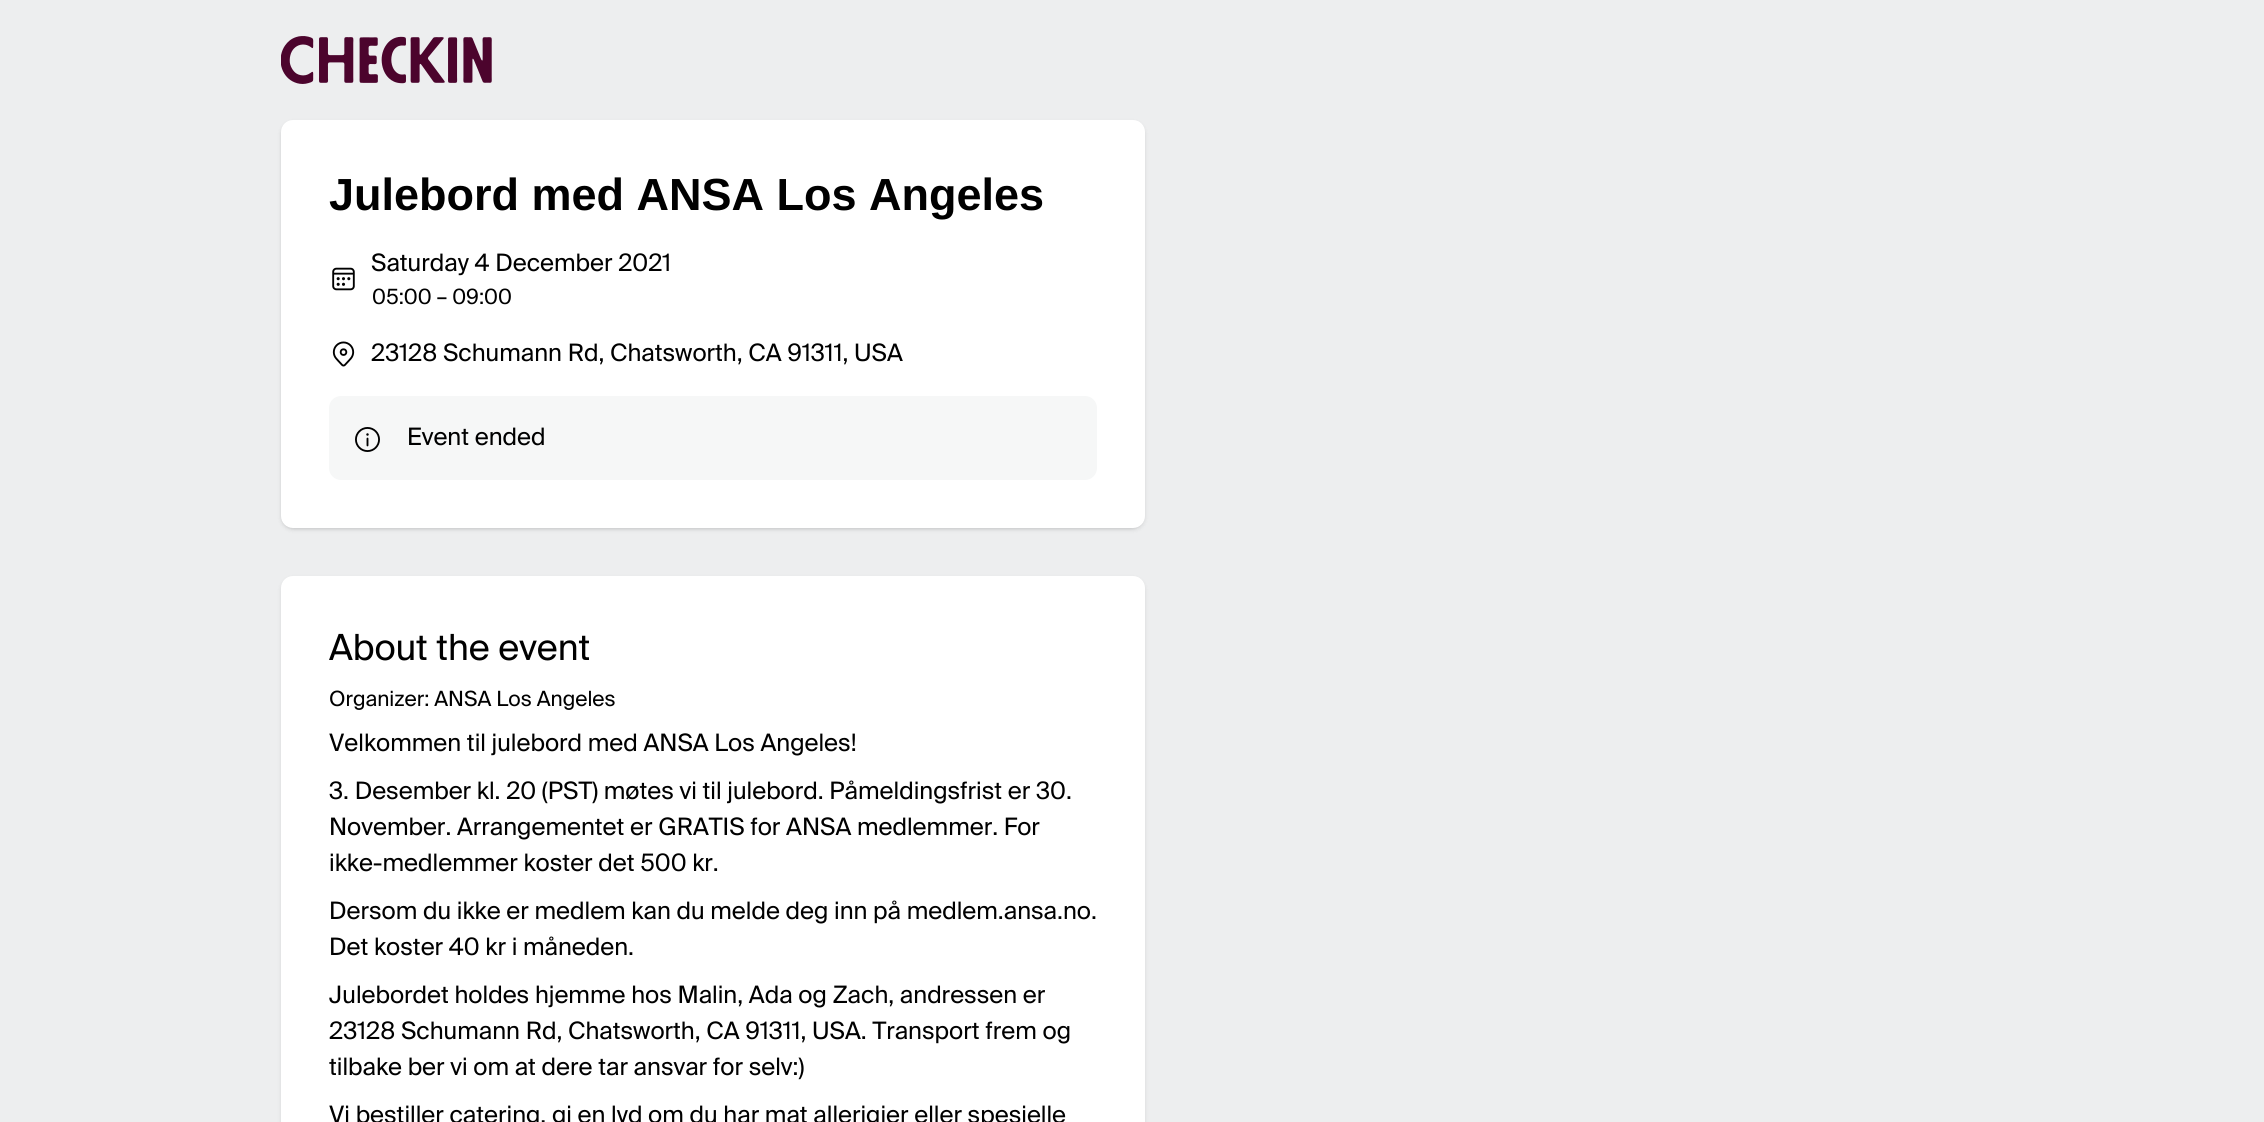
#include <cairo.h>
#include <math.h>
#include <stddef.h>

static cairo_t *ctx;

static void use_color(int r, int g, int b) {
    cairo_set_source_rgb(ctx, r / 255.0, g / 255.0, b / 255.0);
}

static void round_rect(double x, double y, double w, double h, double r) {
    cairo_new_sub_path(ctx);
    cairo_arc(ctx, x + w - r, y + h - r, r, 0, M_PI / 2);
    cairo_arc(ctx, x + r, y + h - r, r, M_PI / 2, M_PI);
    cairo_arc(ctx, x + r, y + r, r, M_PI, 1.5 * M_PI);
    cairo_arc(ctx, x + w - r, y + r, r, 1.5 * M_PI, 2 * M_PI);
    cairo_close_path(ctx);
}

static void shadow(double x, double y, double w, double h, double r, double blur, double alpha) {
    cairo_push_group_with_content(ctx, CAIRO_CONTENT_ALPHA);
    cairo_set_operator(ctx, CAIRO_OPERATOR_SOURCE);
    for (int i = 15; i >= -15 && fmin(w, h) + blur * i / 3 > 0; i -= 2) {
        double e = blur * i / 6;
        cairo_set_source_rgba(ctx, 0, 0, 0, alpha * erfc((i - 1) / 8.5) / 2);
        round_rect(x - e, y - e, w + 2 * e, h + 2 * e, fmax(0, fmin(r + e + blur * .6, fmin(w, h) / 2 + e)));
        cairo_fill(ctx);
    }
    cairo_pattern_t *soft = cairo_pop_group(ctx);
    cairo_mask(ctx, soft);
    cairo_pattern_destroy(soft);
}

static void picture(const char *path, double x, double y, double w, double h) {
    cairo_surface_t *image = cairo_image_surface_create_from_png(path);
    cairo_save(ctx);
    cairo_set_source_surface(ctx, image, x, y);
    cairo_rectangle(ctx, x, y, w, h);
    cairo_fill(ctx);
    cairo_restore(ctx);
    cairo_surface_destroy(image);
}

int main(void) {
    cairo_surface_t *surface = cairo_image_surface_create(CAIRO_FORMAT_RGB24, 2264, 1122);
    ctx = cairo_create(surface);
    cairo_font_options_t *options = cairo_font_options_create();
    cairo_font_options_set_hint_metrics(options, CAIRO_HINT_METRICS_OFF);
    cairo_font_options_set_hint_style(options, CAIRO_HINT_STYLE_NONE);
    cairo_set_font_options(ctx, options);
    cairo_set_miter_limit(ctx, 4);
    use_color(237, 238, 239);
    cairo_paint(ctx);
    picture("img1.png", 281, 36, 211, 48);
    use_color(0, 0, 0);
    shadow(282, 123, 861, 405, 11, 1.5, 0.1);
    shadow(281, 122, 864, 408, 12, 2, 0.1);
    use_color(255, 255, 255);
    round_rect(281, 120, 864, 408, 12);
    cairo_fill(ctx);
    cairo_select_font_face(ctx, "Liberation Sans", CAIRO_FONT_SLANT_NORMAL, CAIRO_FONT_WEIGHT_BOLD);
    cairo_set_font_size(ctx, 45);
    use_color(0, 0, 0);
    cairo_move_to(ctx, 329, 210);
    cairo_show_text(ctx, "Julebord med ANSA Los Angeles");
    picture("img2.png", 332, 267, 23, 24);
    cairo_select_font_face(ctx, "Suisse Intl", CAIRO_FONT_SLANT_NORMAL, CAIRO_FONT_WEIGHT_NORMAL);
    cairo_set_font_size(ctx, 24);
    cairo_move_to(ctx, 371, 271);
    cairo_show_text(ctx, "Saturday 4 December 2021");
    cairo_set_font_size(ctx, 21);
    cairo_move_to(ctx, 372, 304);
    cairo_show_text(ctx, "05:00 – 09:00");
    picture("img3.png", 332, 341, 23, 26);
    cairo_set_font_size(ctx, 24);
    cairo_move_to(ctx, 371, 361);
    cairo_show_text(ctx, "23128 Schumann Rd, Chatsworth, CA 91311, USA");
    use_color(246, 247, 247);
    round_rect(329, 396, 768, 84, 12);
    cairo_fill(ctx);
    picture("img4.png", 355, 427, 25, 25);
    use_color(0, 0, 0);
    cairo_move_to(ctx, 407, 445);
    cairo_show_text(ctx, "Event ended");
    use_color(0, 0, 0);
    shadow(281, 578, 864, 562, 12, 2, 0.1);
    use_color(255, 255, 255);
    round_rect(281, 576, 864, 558, 12);
    cairo_fill(ctx);
    cairo_set_font_size(ctx, 36);
    use_color(0, 0, 0);
    cairo_move_to(ctx, 329, 660);
    cairo_show_text(ctx, "About the event");
    cairo_set_font_size(ctx, 21);
    cairo_move_to(ctx, 329, 706);
    cairo_show_text(ctx, "Organizer: ANSA Los Angeles");
    cairo_set_font_size(ctx, 24);
    cairo_move_to(ctx, 329, 751);
    cairo_show_text(ctx, "Velkommen til julebord med ANSA Los Angeles!");
    cairo_move_to(ctx, 329, 799);
    cairo_show_text(ctx, "3. Desember kl. 20 (PST) møtes vi til julebord. Påmeldingsfrist er 30.");
    cairo_move_to(ctx, 329, 835);
    cairo_show_text(ctx, "November. Arrangementet er GRATIS for ANSA medlemmer. For");
    cairo_move_to(ctx, 329, 871);
    cairo_show_text(ctx, "ikke-medlemmer koster det 500 kr.");
    cairo_move_to(ctx, 329, 919);
    cairo_show_text(ctx, "Dersom du ikke er medlem kan du melde deg inn på medlem.ansa.no.");
    cairo_move_to(ctx, 329, 955);
    cairo_show_text(ctx, "Det koster 40 kr i måneden.");
    cairo_move_to(ctx, 329, 1003);
    cairo_show_text(ctx, "Julebordet holdes hjemme hos Malin, Ada og Zach, andressen er");
    cairo_move_to(ctx, 329, 1039);
    cairo_show_text(ctx, "23128 Schumann Rd, Chatsworth, CA 91311, USA. Transport frem og");
    cairo_move_to(ctx, 329, 1075);
    cairo_show_text(ctx, "tilbake ber vi om at dere tar ansvar for selv:)");
    cairo_move_to(ctx, 329, 1123);
    cairo_show_text(ctx, "Vi bestiller catering, gi en lyd om du har mat allerigier eller spesielle");
    cairo_surface_write_to_png(surface, "result.png");
    cairo_font_options_destroy(options);
    cairo_destroy(ctx);
    cairo_surface_destroy(surface);
    return 0;
}
